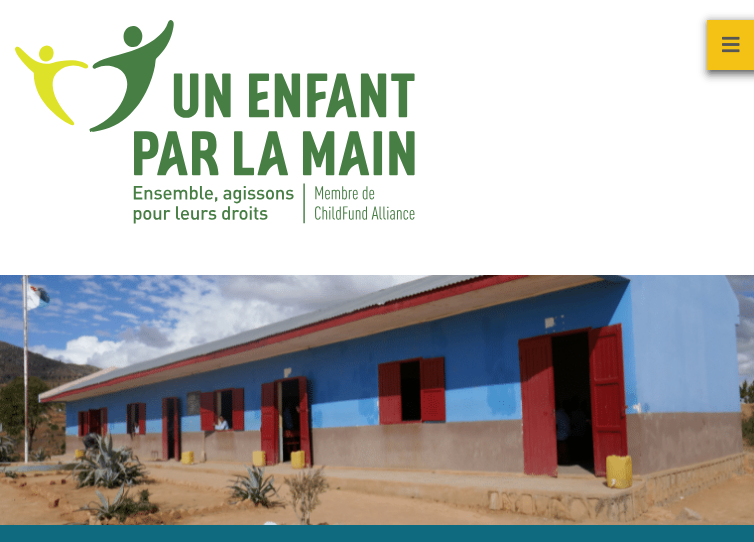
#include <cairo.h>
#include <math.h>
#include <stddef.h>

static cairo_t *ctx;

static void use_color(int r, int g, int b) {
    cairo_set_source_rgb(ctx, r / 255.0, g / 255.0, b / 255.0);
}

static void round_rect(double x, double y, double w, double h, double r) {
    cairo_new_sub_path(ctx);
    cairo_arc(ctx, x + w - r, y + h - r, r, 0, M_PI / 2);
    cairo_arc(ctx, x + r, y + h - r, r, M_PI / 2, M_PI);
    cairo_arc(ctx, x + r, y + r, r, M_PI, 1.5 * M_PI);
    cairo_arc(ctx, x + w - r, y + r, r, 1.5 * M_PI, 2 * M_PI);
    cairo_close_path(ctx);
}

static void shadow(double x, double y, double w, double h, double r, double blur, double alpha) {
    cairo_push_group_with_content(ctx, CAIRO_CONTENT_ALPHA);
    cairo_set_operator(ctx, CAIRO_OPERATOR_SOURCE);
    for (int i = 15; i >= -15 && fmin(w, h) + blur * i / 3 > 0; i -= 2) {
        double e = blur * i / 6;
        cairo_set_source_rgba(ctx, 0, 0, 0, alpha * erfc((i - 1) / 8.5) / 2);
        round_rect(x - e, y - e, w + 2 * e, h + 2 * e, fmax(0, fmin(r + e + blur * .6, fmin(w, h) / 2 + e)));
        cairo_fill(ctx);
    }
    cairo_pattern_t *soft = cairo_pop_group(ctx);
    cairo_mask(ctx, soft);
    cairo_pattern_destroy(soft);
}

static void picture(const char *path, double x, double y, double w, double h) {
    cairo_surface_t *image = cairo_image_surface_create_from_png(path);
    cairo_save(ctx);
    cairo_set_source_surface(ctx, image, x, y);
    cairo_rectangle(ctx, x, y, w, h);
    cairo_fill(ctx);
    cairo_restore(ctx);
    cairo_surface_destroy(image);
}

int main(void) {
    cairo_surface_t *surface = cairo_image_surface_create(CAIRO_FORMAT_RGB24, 754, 542);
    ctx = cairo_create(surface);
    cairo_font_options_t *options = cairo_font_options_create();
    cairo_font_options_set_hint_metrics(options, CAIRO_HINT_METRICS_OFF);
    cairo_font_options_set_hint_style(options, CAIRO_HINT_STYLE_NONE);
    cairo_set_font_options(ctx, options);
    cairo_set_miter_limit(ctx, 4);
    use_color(255, 255, 255);
    cairo_paint(ctx);
    picture("img1.png", 15, 20, 400, 204);
    use_color(66, 66, 66);
    shadow(709, 23, 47, 50, 0, 5, 1);
    use_color(243, 194, 21);
    cairo_rectangle(ctx, 707, 20, 47, 50);
    cairo_fill(ctx);
    picture("img2.png", 722, 36, 18, 17);
    picture("img3.png", 0, 275, 754, 250);
    use_color(15, 106, 127);
    cairo_rectangle(ctx, 0, 525, 754, 17);
    cairo_fill(ctx);
    cairo_surface_write_to_png(surface, "result.png");
    cairo_font_options_destroy(options);
    cairo_destroy(ctx);
    cairo_surface_destroy(surface);
    return 0;
}
